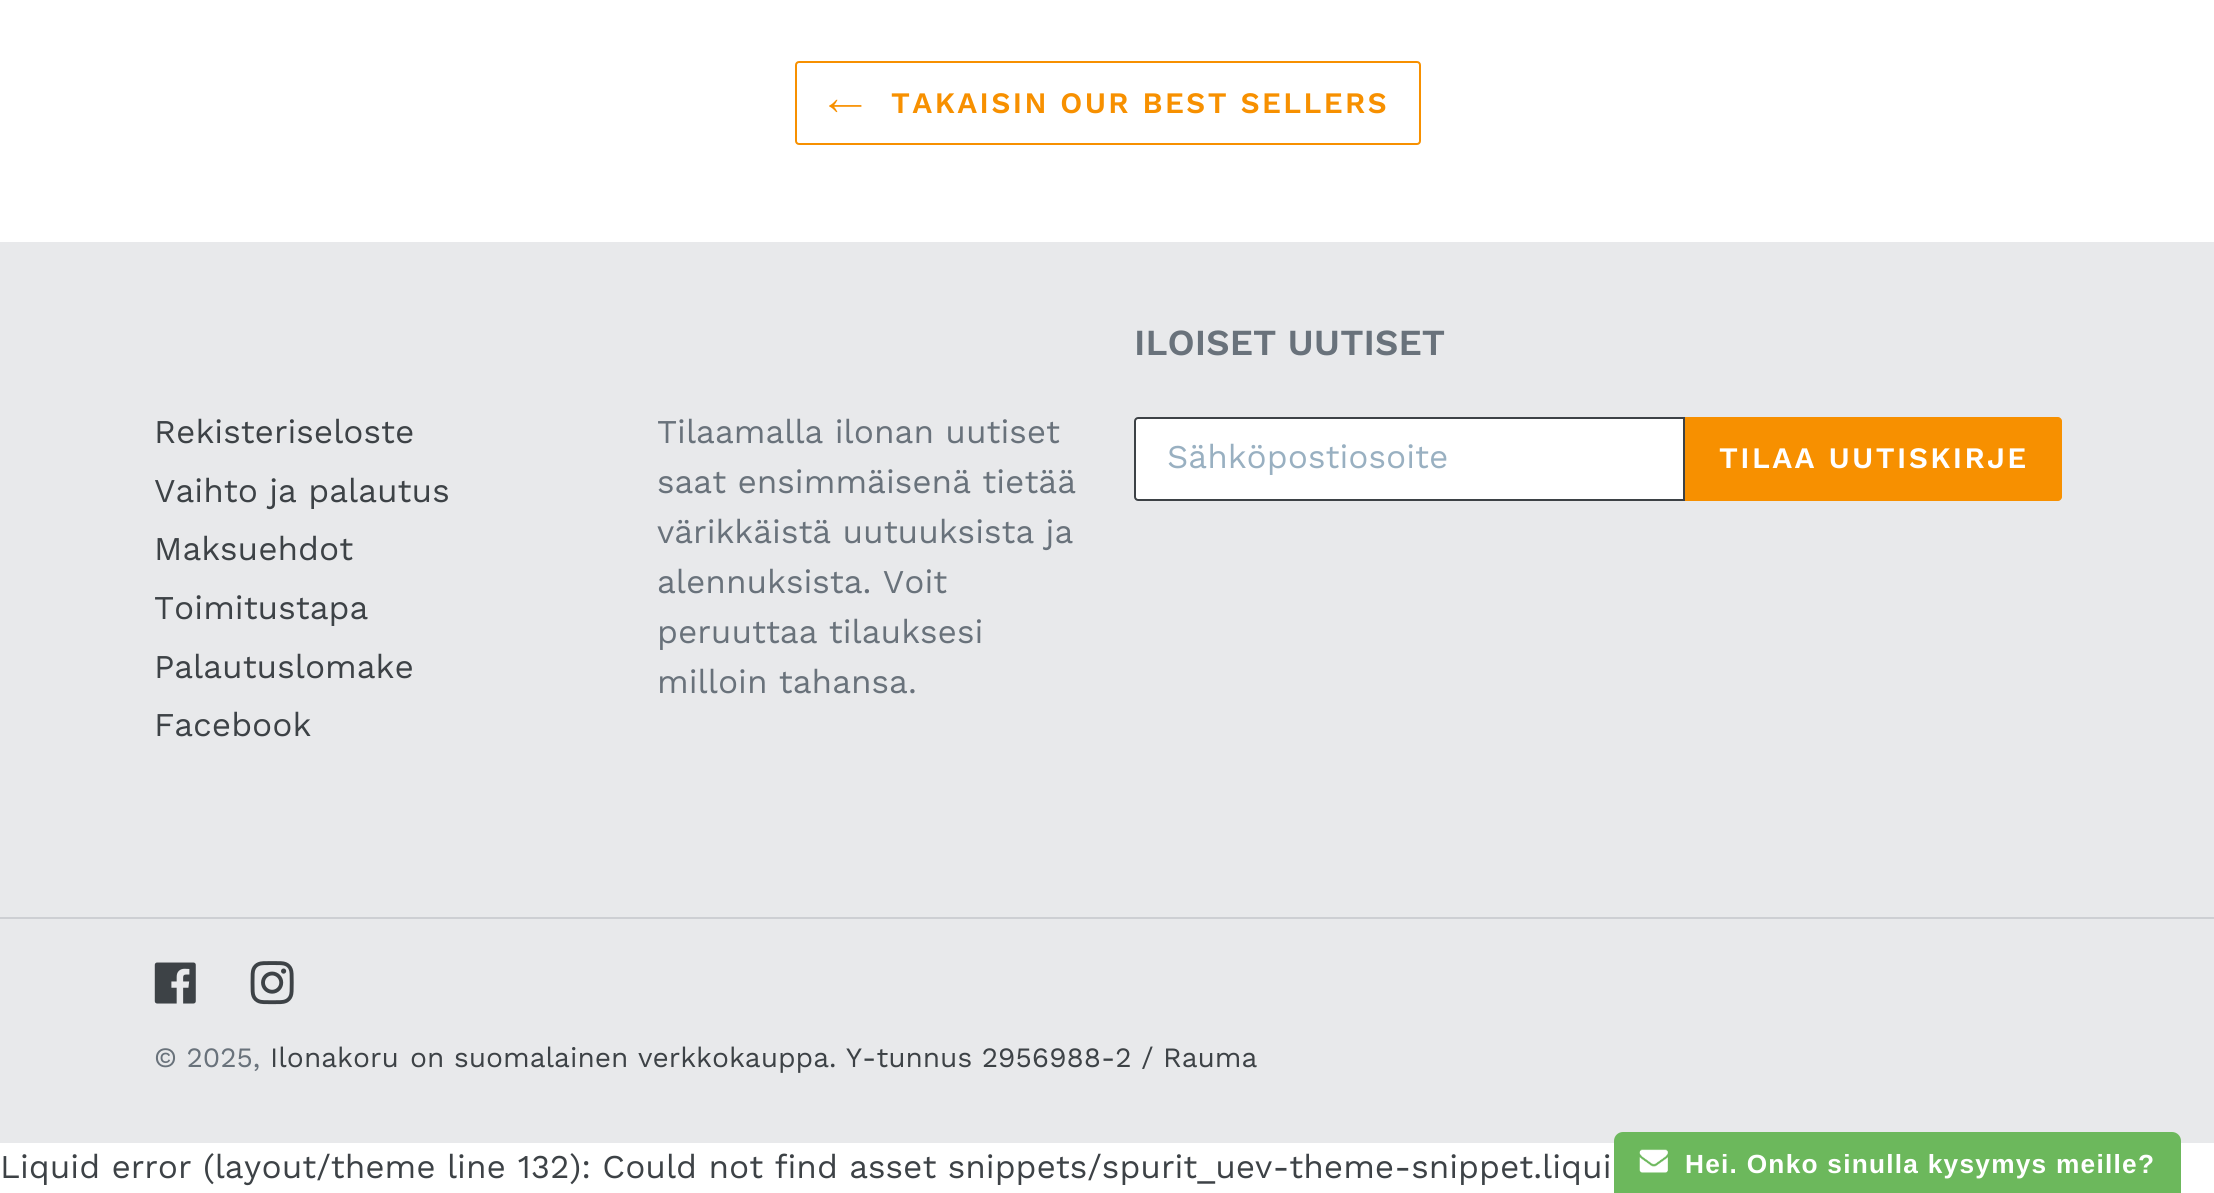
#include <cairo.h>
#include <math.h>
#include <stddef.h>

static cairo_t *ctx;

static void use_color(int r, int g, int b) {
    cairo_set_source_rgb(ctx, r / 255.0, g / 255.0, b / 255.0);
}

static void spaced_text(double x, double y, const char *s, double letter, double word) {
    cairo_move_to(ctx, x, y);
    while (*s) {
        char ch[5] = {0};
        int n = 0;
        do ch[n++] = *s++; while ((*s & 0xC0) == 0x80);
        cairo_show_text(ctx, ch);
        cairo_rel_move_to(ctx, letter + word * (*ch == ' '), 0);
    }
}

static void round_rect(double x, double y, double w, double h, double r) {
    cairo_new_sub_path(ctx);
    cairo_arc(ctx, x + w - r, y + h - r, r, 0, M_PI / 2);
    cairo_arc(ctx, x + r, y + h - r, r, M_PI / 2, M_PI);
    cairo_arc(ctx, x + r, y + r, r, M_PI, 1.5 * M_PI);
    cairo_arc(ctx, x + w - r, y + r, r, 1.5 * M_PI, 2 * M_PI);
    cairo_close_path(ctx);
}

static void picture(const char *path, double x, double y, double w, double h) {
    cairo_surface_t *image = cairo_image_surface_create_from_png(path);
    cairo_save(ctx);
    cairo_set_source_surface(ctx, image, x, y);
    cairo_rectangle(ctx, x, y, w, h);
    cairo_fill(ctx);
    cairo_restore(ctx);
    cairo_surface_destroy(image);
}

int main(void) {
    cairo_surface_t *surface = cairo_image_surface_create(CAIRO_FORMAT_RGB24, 2214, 1193);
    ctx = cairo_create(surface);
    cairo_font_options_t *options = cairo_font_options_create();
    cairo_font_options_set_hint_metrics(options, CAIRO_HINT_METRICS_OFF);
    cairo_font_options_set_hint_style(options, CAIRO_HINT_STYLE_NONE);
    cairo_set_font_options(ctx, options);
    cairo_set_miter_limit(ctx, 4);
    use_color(255, 255, 255);
    cairo_paint(ctx);
    round_rect(796, 62, 624, 82, 3);
    use_color(247, 144, 0);
    cairo_stroke(ctx);
    picture("img1.png", 829, 99, 33, 14);
    cairo_select_font_face(ctx, "Work Sans SemiBold", CAIRO_FONT_SLANT_NORMAL, CAIRO_FONT_WEIGHT_NORMAL);
    cairo_set_font_size(ctx, 29.75);
    spaced_text(891, 113, "TAKAISIN OUR BEST SELLERS", 2.4, 0);
    use_color(232, 233, 235);
    cairo_rectangle(ctx, 0, 242, 2214, 901);
    cairo_fill(ctx);
    cairo_set_font_size(ctx, 36.75);
    use_color(105, 114, 123);
    cairo_move_to(ctx, 1134, 355);
    cairo_show_text(ctx, "ILOISET UUTISET");
    use_color(255, 255, 255);
    cairo_new_path(ctx);
    cairo_move_to(ctx, 1138, 418);
    cairo_line_to(ctx, 1684, 418);
    cairo_line_to(ctx, 1684, 500);
    cairo_line_to(ctx, 1138, 500);
    cairo_curve_to(ctx, 1136.5, 500, 1135, 498.5, 1135, 497);
    cairo_line_to(ctx, 1135, 421);
    cairo_curve_to(ctx, 1135, 419.5, 1136.5, 418, 1138, 418);
    cairo_close_path(ctx);
    cairo_fill_preserve(ctx);
    use_color(61, 66, 70);
    cairo_stroke(ctx);
    cairo_select_font_face(ctx, "Work Sans", CAIRO_FONT_SLANT_NORMAL, CAIRO_FONT_WEIGHT_NORMAL);
    cairo_set_font_size(ctx, 33.25);
    use_color(153, 176, 193);
    cairo_move_to(ctx, 1167, 468);
    cairo_show_text(ctx, "Sähköpostiosoite");
    use_color(247, 144, 0);
    cairo_new_path(ctx);
    cairo_move_to(ctx, 1685, 417);
    cairo_line_to(ctx, 2058, 417);
    cairo_curve_to(ctx, 2060, 417, 2062, 419, 2062, 421);
    cairo_line_to(ctx, 2062, 497);
    cairo_curve_to(ctx, 2062, 499, 2060, 501, 2058, 501);
    cairo_line_to(ctx, 1685, 501);
    cairo_close_path(ctx);
    cairo_fill(ctx);
    cairo_select_font_face(ctx, "Work Sans SemiBold", CAIRO_FONT_SLANT_NORMAL, CAIRO_FONT_WEIGHT_NORMAL);
    cairo_set_font_size(ctx, 29.75);
    use_color(255, 255, 255);
    spaced_text(1719, 468, "TILAA UUTISKIRJE", 2.4, 0);
    cairo_select_font_face(ctx, "Work Sans", CAIRO_FONT_SLANT_NORMAL, CAIRO_FONT_WEIGHT_NORMAL);
    cairo_set_font_size(ctx, 33.25);
    use_color(61, 66, 70);
    cairo_move_to(ctx, 154, 443);
    cairo_show_text(ctx, "Rekisteriseloste");
    cairo_move_to(ctx, 154, 502);
    cairo_show_text(ctx, "Vaihto ja palautus");
    cairo_move_to(ctx, 154, 560);
    cairo_show_text(ctx, "Maksuehdot");
    cairo_move_to(ctx, 154, 619);
    cairo_show_text(ctx, "Toimitustapa");
    cairo_move_to(ctx, 154, 678);
    cairo_show_text(ctx, "Palautuslomake");
    cairo_move_to(ctx, 154, 736);
    cairo_show_text(ctx, "Facebook");
    use_color(105, 114, 123);
    cairo_move_to(ctx, 657, 443);
    cairo_show_text(ctx, "Tilaamalla ilonan uutiset");
    cairo_move_to(ctx, 657, 493);
    cairo_show_text(ctx, "saat ensimmäisenä tietää");
    cairo_move_to(ctx, 657, 543);
    cairo_show_text(ctx, "värikkäistä uutuuksista ja");
    cairo_move_to(ctx, 657, 593);
    cairo_show_text(ctx, "alennuksista. Voit");
    cairo_move_to(ctx, 657, 643);
    cairo_show_text(ctx, "peruuttaa tilauksesi");
    cairo_move_to(ctx, 657, 693);
    cairo_show_text(ctx, "milloin tahansa.");
    use_color(205, 207, 211);
    cairo_rectangle(ctx, 0, 917, 2214, 2);
    cairo_fill(ctx);
    picture("img2.png", 154, 962, 42, 42);
    picture("img3.png", 250, 961, 44, 44);
    cairo_set_font_size(ctx, 28);
    use_color(105, 114, 123);
    cairo_move_to(ctx, 154, 1067);
    cairo_show_text(ctx, "© 2025,");
    use_color(61, 66, 70);
    cairo_move_to(ctx, 270, 1067);
    cairo_show_text(ctx, "Ilonakoru");
    cairo_move_to(ctx, 410, 1067);
    cairo_show_text(ctx, "on suomalainen verkkokauppa. Y-tunnus 2956988-2 / Rauma");
    cairo_set_font_size(ctx, 33.25);
    cairo_move_to(ctx, 0, 1178);
    cairo_show_text(ctx, "Liquid error (layout/theme line 132): Could not find asset snippets/spurit_uev-theme-snippet.liqui");
    use_color(108, 184, 92);
    cairo_new_path(ctx);
    cairo_move_to(ctx, 1623, 1132);
    cairo_line_to(ctx, 2172, 1132);
    cairo_curve_to(ctx, 2177, 1132, 2181, 1136, 2181, 1141);
    cairo_line_to(ctx, 2181, 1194);
    cairo_line_to(ctx, 1614, 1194);
    cairo_line_to(ctx, 1614, 1141);
    cairo_curve_to(ctx, 1614, 1136, 1618, 1132, 1623, 1132);
    cairo_close_path(ctx);
    cairo_fill(ctx);
    picture("img4.png", 1639, 1149, 29, 24);
    cairo_select_font_face(ctx, "Liberation Sans", CAIRO_FONT_SLANT_NORMAL, CAIRO_FONT_WEIGHT_BOLD);
    cairo_set_font_size(ctx, 26.25);
    use_color(255, 255, 255);
    spaced_text(1685, 1173, "Hei. Onko sinulla kysymys meille?", 1.25, 0);
    cairo_surface_write_to_png(surface, "result.png");
    cairo_font_options_destroy(options);
    cairo_destroy(ctx);
    cairo_surface_destroy(surface);
    return 0;
}
